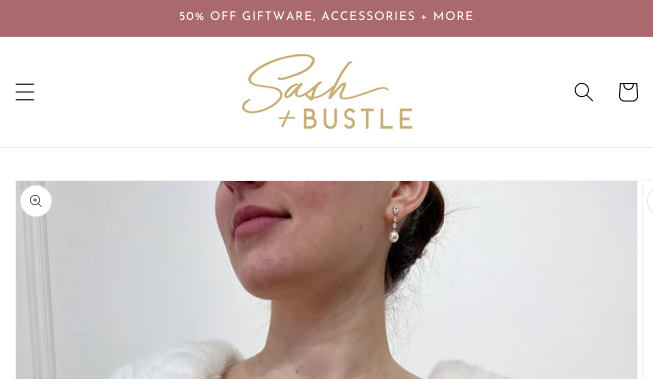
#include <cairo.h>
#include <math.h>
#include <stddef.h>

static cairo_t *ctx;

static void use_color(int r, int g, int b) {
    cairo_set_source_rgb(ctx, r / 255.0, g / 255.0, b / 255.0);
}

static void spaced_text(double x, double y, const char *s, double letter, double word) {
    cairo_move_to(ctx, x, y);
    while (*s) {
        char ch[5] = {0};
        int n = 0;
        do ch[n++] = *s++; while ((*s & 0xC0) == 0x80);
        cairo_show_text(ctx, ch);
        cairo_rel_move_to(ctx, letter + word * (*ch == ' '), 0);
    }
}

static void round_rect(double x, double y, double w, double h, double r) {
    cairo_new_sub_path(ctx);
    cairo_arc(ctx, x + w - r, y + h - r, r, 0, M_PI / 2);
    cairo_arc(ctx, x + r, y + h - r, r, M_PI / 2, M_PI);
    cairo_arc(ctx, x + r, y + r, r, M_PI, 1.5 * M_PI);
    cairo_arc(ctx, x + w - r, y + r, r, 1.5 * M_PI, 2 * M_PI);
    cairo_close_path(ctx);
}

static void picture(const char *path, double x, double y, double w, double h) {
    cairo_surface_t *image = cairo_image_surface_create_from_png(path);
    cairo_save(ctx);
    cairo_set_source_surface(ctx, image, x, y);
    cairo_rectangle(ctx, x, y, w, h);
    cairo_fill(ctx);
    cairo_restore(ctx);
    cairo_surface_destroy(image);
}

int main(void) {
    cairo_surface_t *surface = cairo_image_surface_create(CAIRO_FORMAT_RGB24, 653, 379);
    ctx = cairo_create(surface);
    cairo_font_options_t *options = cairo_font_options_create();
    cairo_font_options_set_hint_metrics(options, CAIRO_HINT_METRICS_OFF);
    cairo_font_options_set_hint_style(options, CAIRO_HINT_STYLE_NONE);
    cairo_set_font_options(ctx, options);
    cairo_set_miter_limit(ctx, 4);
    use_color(255, 255, 255);
    cairo_paint(ctx);
    use_color(169, 105, 110);
    cairo_rectangle(ctx, 0, 0, 653, 36);
    cairo_fill(ctx);
    use_color(176, 117, 122);
    cairo_rectangle(ctx, 0, 36, 653, 1);
    cairo_fill(ctx);
    cairo_select_font_face(ctx, "Josefin Sans", CAIRO_FONT_SLANT_NORMAL, CAIRO_FONT_WEIGHT_NORMAL);
    cairo_set_font_size(ctx, 12);
    use_color(255, 255, 255);
    spaced_text(179, 20, "50% OFF GIFTWARE, ACCESSORIES + MORE", 1, 0);
    use_color(235, 235, 235);
    cairo_rectangle(ctx, 0, 147, 653, 1);
    cairo_fill(ctx);
    picture("img1.png", 15, 83, 20, 18);
    picture("img2.png", 242, 54, 170, 75);
    picture("img3.png", 574, 82, 19, 20);
    picture("img4.png", 619, 83, 20, 19);
    cairo_rectangle(ctx, 15.5, 180.5, 622, 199);
    use_color(242, 242, 242);
    cairo_set_line_width(ctx, 1);
    cairo_stroke(ctx);
    picture("img5.png", 16, 181, 621, 198);
    use_color(255, 255, 255);
    cairo_arc(ctx, 36, 201, 16, 0, 2 * M_PI);
    cairo_fill(ctx);
    cairo_arc(ctx, 36, 201, 15.5, 0, 2 * M_PI);
    cairo_set_source_rgba(ctx, 0, 0, 0, 0.1);
    cairo_stroke(ctx);
    picture("img6.png", 30, 195, 12, 12);
    cairo_rectangle(ctx, 642.5, 180.5, 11, 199);
    use_color(242, 242, 242);
    cairo_stroke(ctx);
    round_rect(647.5, 185.5, 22, 31, 15.5);
    use_color(230, 230, 230);
    cairo_stroke(ctx);
    cairo_surface_write_to_png(surface, "result.png");
    cairo_font_options_destroy(options);
    cairo_destroy(ctx);
    cairo_surface_destroy(surface);
    return 0;
}
